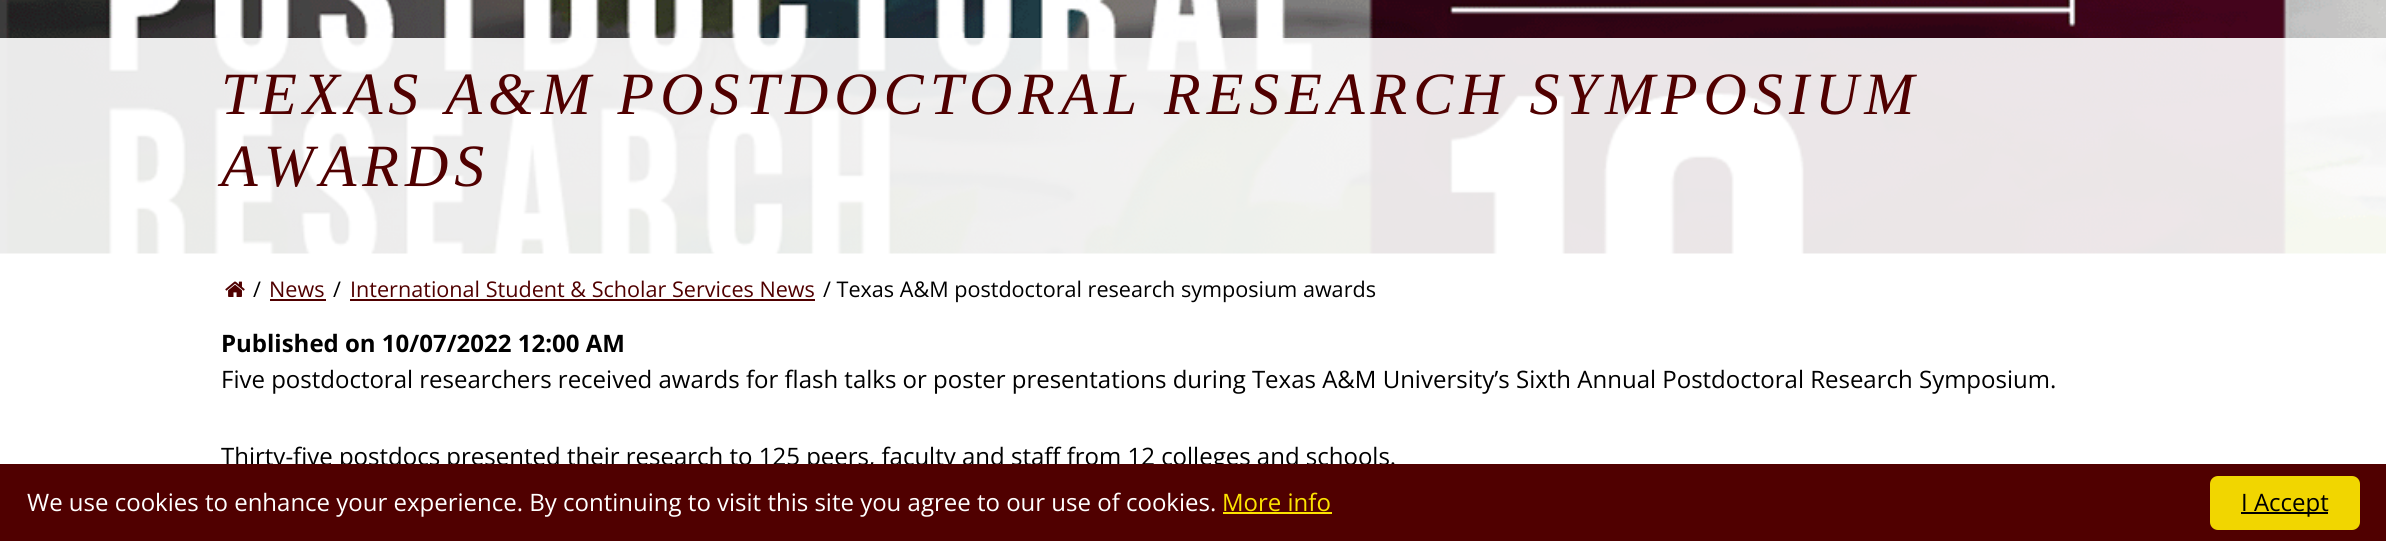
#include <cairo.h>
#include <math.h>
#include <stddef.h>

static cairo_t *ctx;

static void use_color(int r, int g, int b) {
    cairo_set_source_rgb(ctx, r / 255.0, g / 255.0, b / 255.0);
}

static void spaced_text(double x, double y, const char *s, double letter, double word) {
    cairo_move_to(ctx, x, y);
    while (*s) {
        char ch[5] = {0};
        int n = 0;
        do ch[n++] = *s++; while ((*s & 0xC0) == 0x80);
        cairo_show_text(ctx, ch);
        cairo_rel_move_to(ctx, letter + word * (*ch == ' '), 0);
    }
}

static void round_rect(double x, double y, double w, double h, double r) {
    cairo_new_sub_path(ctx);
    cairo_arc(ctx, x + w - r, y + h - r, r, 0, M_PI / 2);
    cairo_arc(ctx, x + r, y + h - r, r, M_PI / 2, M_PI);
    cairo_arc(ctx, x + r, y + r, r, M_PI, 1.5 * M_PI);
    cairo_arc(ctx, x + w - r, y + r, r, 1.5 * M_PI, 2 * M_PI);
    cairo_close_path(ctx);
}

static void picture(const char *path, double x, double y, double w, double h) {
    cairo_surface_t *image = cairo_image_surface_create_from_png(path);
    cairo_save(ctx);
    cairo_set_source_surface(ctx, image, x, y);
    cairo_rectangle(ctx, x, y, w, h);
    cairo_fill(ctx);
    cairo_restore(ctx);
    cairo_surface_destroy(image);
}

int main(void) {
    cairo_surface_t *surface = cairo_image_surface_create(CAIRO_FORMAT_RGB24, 2386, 541);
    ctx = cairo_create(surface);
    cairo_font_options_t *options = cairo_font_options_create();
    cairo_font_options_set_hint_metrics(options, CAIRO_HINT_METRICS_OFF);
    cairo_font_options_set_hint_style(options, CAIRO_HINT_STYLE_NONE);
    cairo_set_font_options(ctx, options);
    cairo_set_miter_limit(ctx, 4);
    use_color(255, 255, 255);
    cairo_paint(ctx);
    picture("img1.png", 0, 0, 2386, 254);
    cairo_set_source_rgba(ctx, 1, 1, 1, 0.9);
    cairo_rectangle(ctx, 0, 38, 2386, 216);
    cairo_fill(ctx);
    cairo_select_font_face(ctx, "Liberation Serif", CAIRO_FONT_SLANT_ITALIC, CAIRO_FONT_WEIGHT_NORMAL);
    cairo_set_font_size(ctx, 60);
    use_color(80, 0, 0);
    spaced_text(221, 114, "TEXAS A&M POSTDOCTORAL RESEARCH SYMPOSIUM", 6, 0);
    spaced_text(221, 186, "AWARDS", 6, 0);
    picture("img2.png", 225, 281, 20, 16);
    cairo_select_font_face(ctx, "Open Sans", CAIRO_FONT_SLANT_NORMAL, CAIRO_FONT_WEIGHT_NORMAL);
    cairo_set_font_size(ctx, 21.6);
    use_color(0, 0, 0);
    cairo_move_to(ctx, 253, 297);
    cairo_show_text(ctx, "/");
    use_color(80, 0, 0);
    cairo_move_to(ctx, 269, 297);
    cairo_show_text(ctx, "News");
    cairo_rectangle(ctx, 270, 299, 56, 2);
    cairo_fill(ctx);
    use_color(0, 0, 0);
    cairo_move_to(ctx, 333, 297);
    cairo_show_text(ctx, "/");
    use_color(80, 0, 0);
    cairo_move_to(ctx, 350, 297);
    cairo_show_text(ctx, "International Student & Scholar Services News");
    cairo_rectangle(ctx, 350, 299, 465, 2);
    cairo_fill(ctx);
    use_color(0, 0, 0);
    cairo_move_to(ctx, 823, 297);
    cairo_show_text(ctx, "/ Texas A&M postdoctoral research symposium awards");
    cairo_select_font_face(ctx, "Open Sans", CAIRO_FONT_SLANT_NORMAL, CAIRO_FONT_WEIGHT_BOLD);
    cairo_set_font_size(ctx, 24);
    cairo_move_to(ctx, 221, 352);
    cairo_show_text(ctx, "Published on 10/07/2022 12:00 AM");
    cairo_select_font_face(ctx, "Open Sans", CAIRO_FONT_SLANT_NORMAL, CAIRO_FONT_WEIGHT_NORMAL);
    cairo_move_to(ctx, 221, 388);
    cairo_show_text(ctx, "Five postdoctoral researchers received awards for flash talks or poster presentations during Texas A&M University’s Sixth Annual Postdoctoral Research Symposium.");
    cairo_move_to(ctx, 221, 465);
    cairo_show_text(ctx, "Thirty-five postdocs presented their research to 125 peers, faculty and staff from 12 colleges and schools.");
    use_color(80, 0, 0);
    cairo_rectangle(ctx, 0, 464, 2386, 77);
    cairo_fill(ctx);
    use_color(255, 255, 255);
    cairo_move_to(ctx, 27, 511);
    cairo_show_text(ctx, "We use cookies to enhance your experience. By continuing to visit this site you agree to our use of cookies.");
    use_color(252, 227, 0);
    cairo_move_to(ctx, 1222, 511);
    cairo_show_text(ctx, "More info");
    cairo_rectangle(ctx, 1223, 512, 109, 2);
    cairo_fill(ctx);
    use_color(241, 214, 0);
    round_rect(2210, 476, 150, 54, 8);
    cairo_fill(ctx);
    use_color(0, 0, 0);
    cairo_rectangle(ctx, 2241, 512, 87, 2);
    cairo_fill(ctx);
    cairo_move_to(ctx, 2241, 511);
    cairo_show_text(ctx, "I Accept");
    cairo_surface_write_to_png(surface, "result.png");
    cairo_font_options_destroy(options);
    cairo_destroy(ctx);
    cairo_surface_destroy(surface);
    return 0;
}
